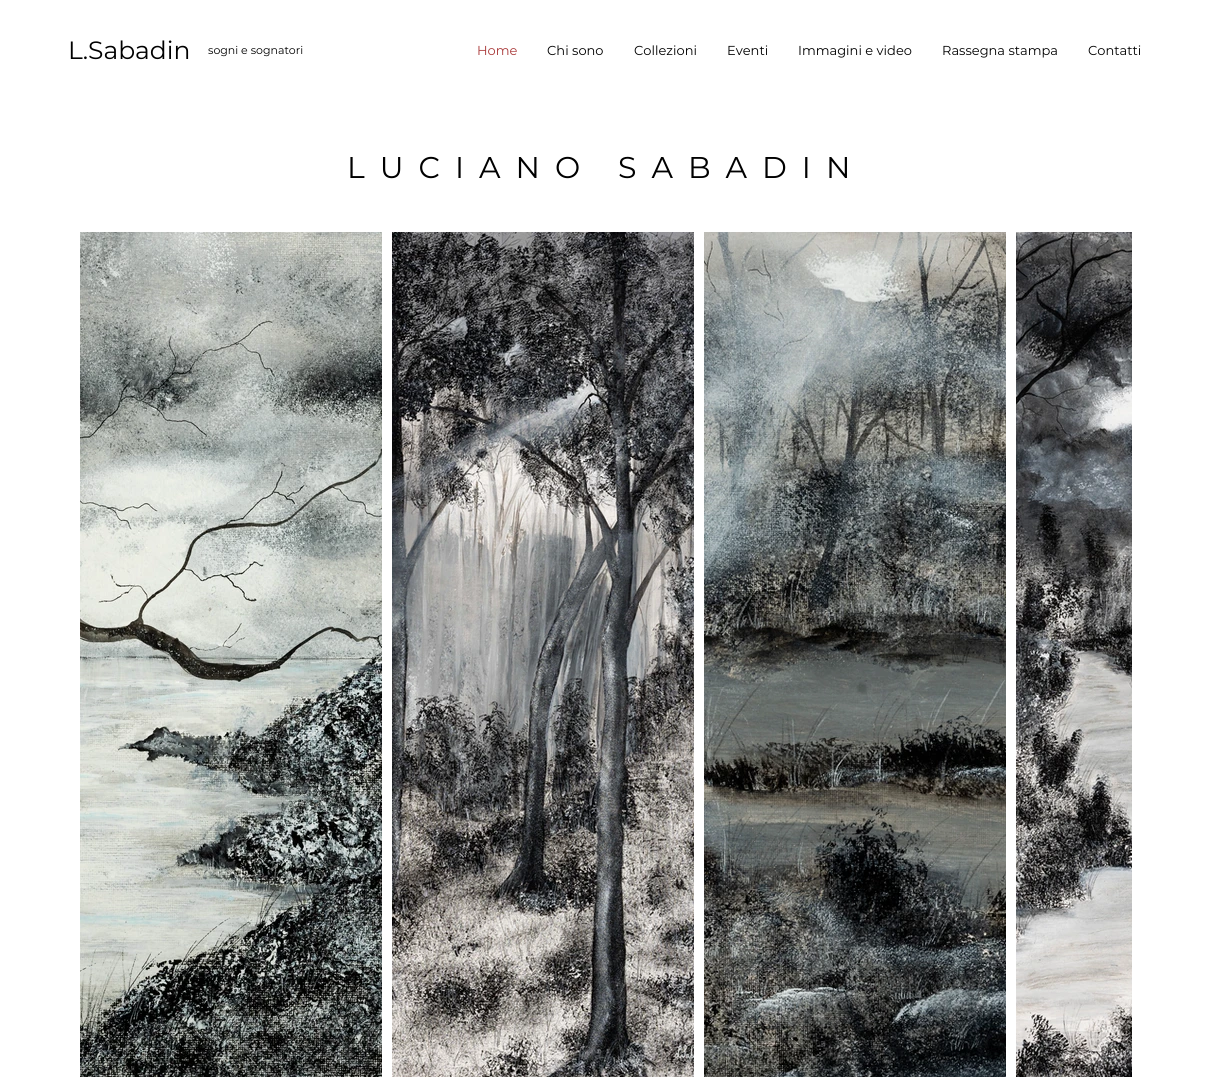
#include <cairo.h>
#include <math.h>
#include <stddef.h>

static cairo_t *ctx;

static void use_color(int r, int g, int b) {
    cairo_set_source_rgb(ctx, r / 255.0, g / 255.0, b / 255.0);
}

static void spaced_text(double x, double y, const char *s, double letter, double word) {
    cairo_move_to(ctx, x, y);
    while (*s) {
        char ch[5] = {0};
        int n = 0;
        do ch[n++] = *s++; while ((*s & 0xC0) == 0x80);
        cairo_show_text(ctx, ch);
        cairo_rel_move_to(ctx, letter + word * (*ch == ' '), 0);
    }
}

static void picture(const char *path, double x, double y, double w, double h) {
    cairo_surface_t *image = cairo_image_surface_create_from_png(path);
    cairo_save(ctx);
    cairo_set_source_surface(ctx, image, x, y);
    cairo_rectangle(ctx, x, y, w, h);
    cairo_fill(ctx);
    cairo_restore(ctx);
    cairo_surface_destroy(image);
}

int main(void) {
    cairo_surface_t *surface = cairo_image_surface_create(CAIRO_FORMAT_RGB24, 1212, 1077);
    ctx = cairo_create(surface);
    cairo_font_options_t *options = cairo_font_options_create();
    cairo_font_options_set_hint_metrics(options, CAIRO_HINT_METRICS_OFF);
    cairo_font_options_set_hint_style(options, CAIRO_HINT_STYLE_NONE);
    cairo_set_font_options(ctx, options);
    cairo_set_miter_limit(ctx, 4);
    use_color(255, 255, 255);
    cairo_paint(ctx);
    cairo_select_font_face(ctx, "Montserrat", CAIRO_FONT_SLANT_NORMAL, CAIRO_FONT_WEIGHT_NORMAL);
    cairo_set_font_size(ctx, 25);
    use_color(0, 0, 0);
    cairo_move_to(ctx, 68, 59);
    cairo_show_text(ctx, "L.Sabadin");
    cairo_set_font_size(ctx, 11);
    cairo_move_to(ctx, 208, 54);
    cairo_show_text(ctx, "sogni e sognatori");
    cairo_set_font_size(ctx, 13);
    use_color(170, 58, 58);
    cairo_move_to(ctx, 477, 55);
    cairo_show_text(ctx, "Home");
    use_color(0, 0, 0);
    cairo_move_to(ctx, 547, 55);
    cairo_show_text(ctx, "Chi sono");
    cairo_move_to(ctx, 634, 55);
    cairo_show_text(ctx, "Collezioni");
    cairo_move_to(ctx, 727, 55);
    cairo_show_text(ctx, "Eventi");
    cairo_move_to(ctx, 798, 55);
    cairo_show_text(ctx, "Immagini e video");
    cairo_move_to(ctx, 942, 55);
    cairo_show_text(ctx, "Rassegna stampa");
    cairo_move_to(ctx, 1088, 55);
    cairo_show_text(ctx, "Contatti");
    cairo_set_font_size(ctx, 30);
    spaced_text(347, 178, "LUCIANO SABADIN", 15, 0);
    picture("img1.png", 80, 232, 302, 845);
    picture("img2.png", 392, 232, 302, 845);
    picture("img3.png", 704, 232, 302, 845);
    picture("img4.png", 1016, 232, 116, 845);
    cairo_surface_write_to_png(surface, "result.png");
    cairo_font_options_destroy(options);
    cairo_destroy(ctx);
    cairo_surface_destroy(surface);
    return 0;
}
